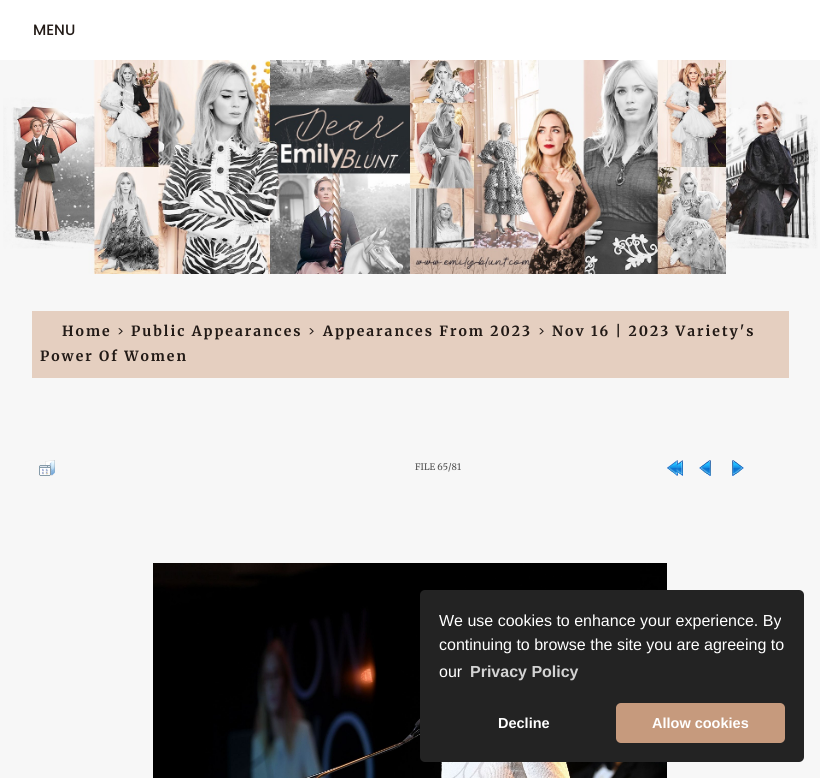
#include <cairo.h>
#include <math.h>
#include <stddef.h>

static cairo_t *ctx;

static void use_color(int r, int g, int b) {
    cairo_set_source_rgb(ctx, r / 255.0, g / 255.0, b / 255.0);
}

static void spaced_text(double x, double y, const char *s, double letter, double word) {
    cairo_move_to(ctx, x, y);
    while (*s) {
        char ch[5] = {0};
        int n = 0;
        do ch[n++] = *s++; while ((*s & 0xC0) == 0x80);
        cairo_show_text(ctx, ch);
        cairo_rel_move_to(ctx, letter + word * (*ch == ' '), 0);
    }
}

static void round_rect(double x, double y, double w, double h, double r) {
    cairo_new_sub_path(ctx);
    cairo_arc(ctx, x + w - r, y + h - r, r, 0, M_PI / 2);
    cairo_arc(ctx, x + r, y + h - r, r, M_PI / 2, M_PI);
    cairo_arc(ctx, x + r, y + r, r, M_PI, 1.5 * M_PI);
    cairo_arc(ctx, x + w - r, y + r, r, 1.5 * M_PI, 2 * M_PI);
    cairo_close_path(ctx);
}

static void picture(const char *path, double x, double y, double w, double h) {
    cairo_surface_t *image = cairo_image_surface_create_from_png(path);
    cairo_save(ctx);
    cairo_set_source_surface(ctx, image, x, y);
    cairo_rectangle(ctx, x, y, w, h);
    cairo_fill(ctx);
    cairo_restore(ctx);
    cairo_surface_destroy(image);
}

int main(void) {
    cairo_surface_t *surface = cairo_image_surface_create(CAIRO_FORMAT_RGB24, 820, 778);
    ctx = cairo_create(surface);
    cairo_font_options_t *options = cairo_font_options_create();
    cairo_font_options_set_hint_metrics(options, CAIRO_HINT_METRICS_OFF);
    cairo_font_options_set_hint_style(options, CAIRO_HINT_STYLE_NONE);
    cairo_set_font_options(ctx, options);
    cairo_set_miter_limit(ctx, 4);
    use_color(247, 247, 247);
    cairo_paint(ctx);
    use_color(255, 255, 255);
    cairo_rectangle(ctx, 0, 0, 820, 60);
    cairo_fill(ctx);
    cairo_select_font_face(ctx, "Poppins Medium", CAIRO_FONT_SLANT_NORMAL, CAIRO_FONT_WEIGHT_NORMAL);
    cairo_set_font_size(ctx, 15);
    use_color(34, 26, 22);
    cairo_move_to(ctx, 33, 35);
    cairo_show_text(ctx, "MENU");
    picture("img1.png", 3, 60, 815, 214);
    use_color(229, 207, 192);
    cairo_rectangle(ctx, 32, 311, 757, 67);
    cairo_fill(ctx);
    cairo_select_font_face(ctx, "Merriweather", CAIRO_FONT_SLANT_NORMAL, CAIRO_FONT_WEIGHT_BOLD);
    cairo_set_font_size(ctx, 14);
    use_color(34, 26, 22);
    spaced_text(62, 336, "Home", 2, 0);
    cairo_select_font_face(ctx, "Poppins", CAIRO_FONT_SLANT_NORMAL, CAIRO_FONT_WEIGHT_NORMAL);
    cairo_set_font_size(ctx, 13);
    spaced_text(117, 336, ">", 2, 0);
    cairo_select_font_face(ctx, "Merriweather", CAIRO_FONT_SLANT_NORMAL, CAIRO_FONT_WEIGHT_BOLD);
    cairo_set_font_size(ctx, 14);
    spaced_text(131, 336, "Public Appearances", 2, 0);
    cairo_select_font_face(ctx, "Poppins", CAIRO_FONT_SLANT_NORMAL, CAIRO_FONT_WEIGHT_NORMAL);
    cairo_set_font_size(ctx, 13);
    spaced_text(308, 336, ">", 2, 0);
    cairo_select_font_face(ctx, "Merriweather", CAIRO_FONT_SLANT_NORMAL, CAIRO_FONT_WEIGHT_BOLD);
    cairo_set_font_size(ctx, 14);
    spaced_text(323, 336, "Appearances From 2023", 2, 0);
    cairo_select_font_face(ctx, "Poppins", CAIRO_FONT_SLANT_NORMAL, CAIRO_FONT_WEIGHT_NORMAL);
    cairo_set_font_size(ctx, 13);
    spaced_text(538, 336, ">", 2, 0);
    cairo_select_font_face(ctx, "Merriweather", CAIRO_FONT_SLANT_NORMAL, CAIRO_FONT_WEIGHT_BOLD);
    cairo_set_font_size(ctx, 14);
    spaced_text(552, 336, "Nov 16 | 2023 Variety's", 2, 0);
    spaced_text(40, 361, "Power Of Women", 2, 0);
    picture("img2.png", 39, 460, 16, 16);
    cairo_select_font_face(ctx, "Merriweather", CAIRO_FONT_SLANT_NORMAL, CAIRO_FONT_WEIGHT_NORMAL);
    cairo_set_font_size(ctx, 9);
    use_color(78, 78, 78);
    cairo_move_to(ctx, 415, 470);
    cairo_show_text(ctx, "FILE 65/81");
    picture("img3.png", 667, 460, 16, 16);
    picture("img4.png", 699, 460, 12, 16);
    picture("img5.png", 732, 460, 12, 16);
    picture("img6.png", 153, 563, 514, 215);
    use_color(35, 35, 35);
    round_rect(420, 590, 384, 172, 5);
    cairo_fill(ctx);
    cairo_select_font_face(ctx, "Liberation Sans", CAIRO_FONT_SLANT_NORMAL, CAIRO_FONT_WEIGHT_NORMAL);
    cairo_set_font_size(ctx, 16);
    use_color(255, 255, 255);
    cairo_move_to(ctx, 439, 626);
    cairo_show_text(ctx, "We use cookies to enhance your experience. By");
    cairo_move_to(ctx, 439, 650);
    cairo_show_text(ctx, "continuing to browse the site you are agreeing to");
    cairo_move_to(ctx, 439, 677);
    cairo_show_text(ctx, "our");
    cairo_select_font_face(ctx, "Liberation Sans", CAIRO_FONT_SLANT_NORMAL, CAIRO_FONT_WEIGHT_BOLD);
    use_color(211, 211, 211);
    cairo_move_to(ctx, 470, 677);
    cairo_show_text(ctx, "Privacy Policy");
    cairo_set_font_size(ctx, 14.5);
    use_color(255, 255, 255);
    cairo_move_to(ctx, 498, 728);
    cairo_show_text(ctx, "Decline");
    use_color(198, 154, 125);
    round_rect(616, 703, 169, 40, 5);
    cairo_fill(ctx);
    use_color(255, 255, 255);
    cairo_move_to(ctx, 652, 728);
    cairo_show_text(ctx, "Allow cookies");
    cairo_surface_write_to_png(surface, "result.png");
    cairo_font_options_destroy(options);
    cairo_destroy(ctx);
    cairo_surface_destroy(surface);
    return 0;
}
